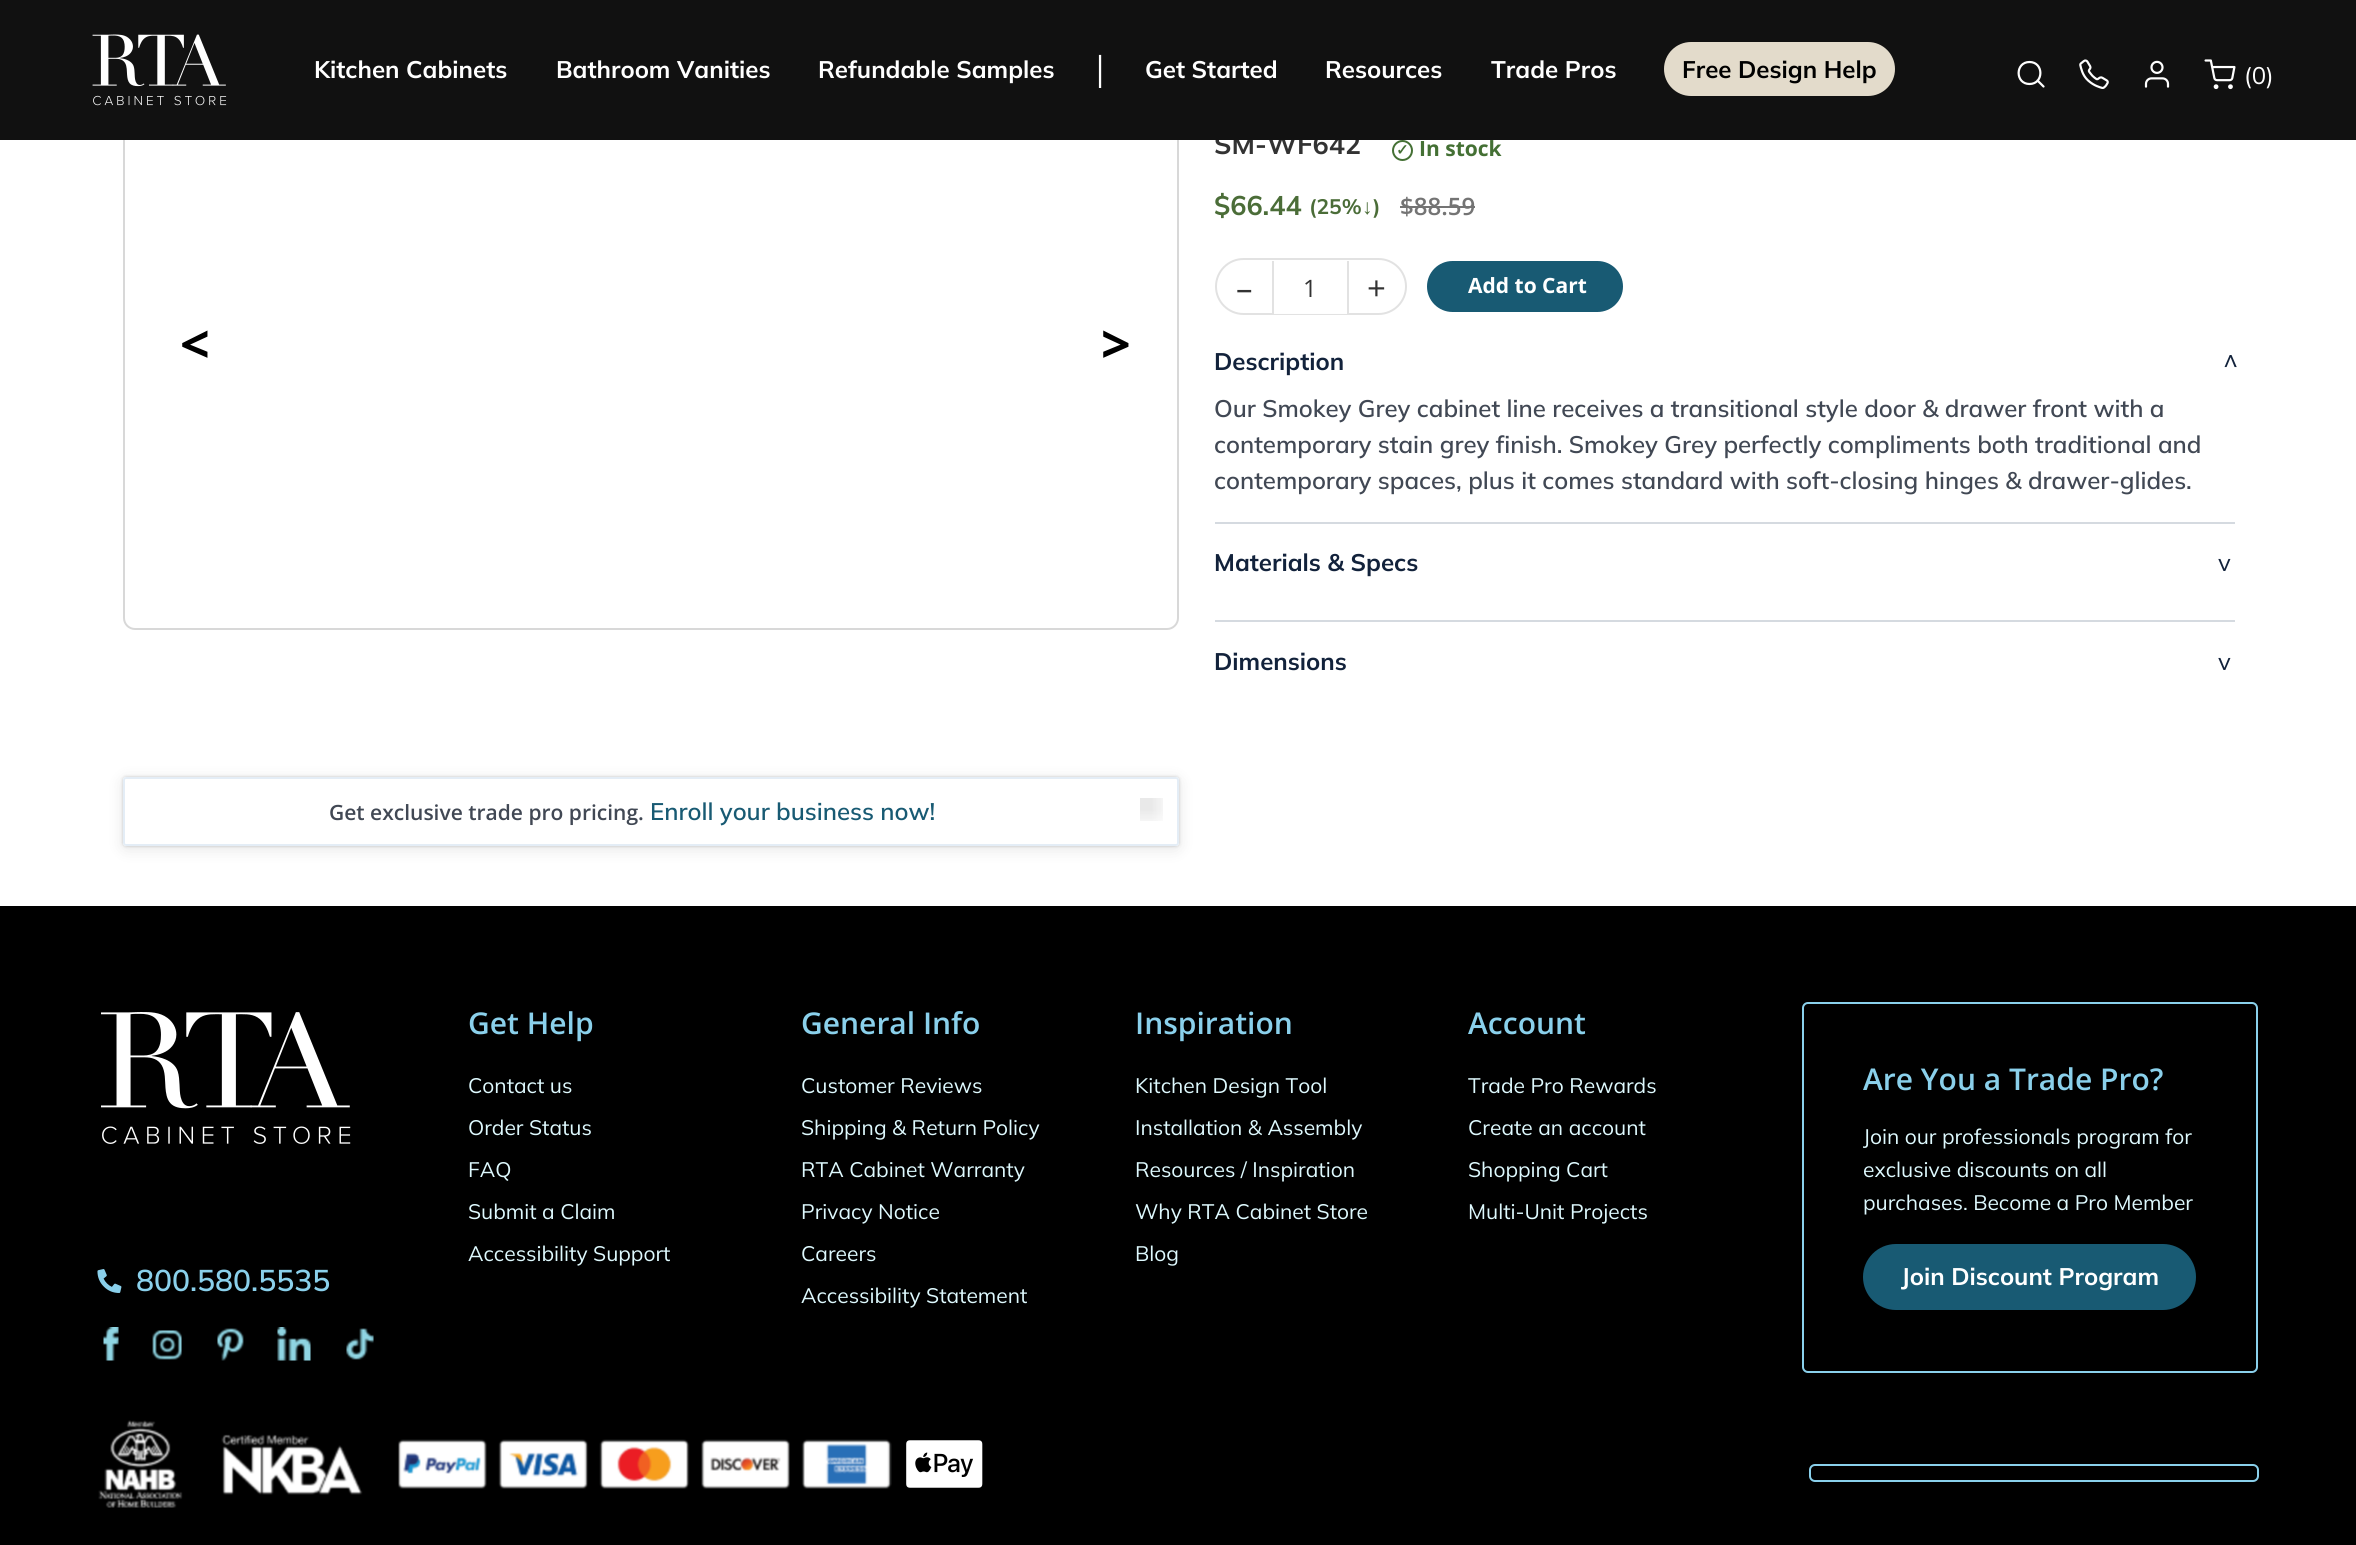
#include <cairo.h>
#include <math.h>
#include <stddef.h>

static cairo_t *ctx;

static void use_color(int r, int g, int b) {
    cairo_set_source_rgb(ctx, r / 255.0, g / 255.0, b / 255.0);
}

static void spaced_text(double x, double y, const char *s, double letter, double word) {
    cairo_move_to(ctx, x, y);
    while (*s) {
        char ch[5] = {0};
        int n = 0;
        do ch[n++] = *s++; while ((*s & 0xC0) == 0x80);
        cairo_show_text(ctx, ch);
        cairo_rel_move_to(ctx, letter + word * (*ch == ' '), 0);
    }
}

static void round_rect(double x, double y, double w, double h, double r) {
    cairo_new_sub_path(ctx);
    cairo_arc(ctx, x + w - r, y + h - r, r, 0, M_PI / 2);
    cairo_arc(ctx, x + r, y + h - r, r, M_PI / 2, M_PI);
    cairo_arc(ctx, x + r, y + r, r, M_PI, 1.5 * M_PI);
    cairo_arc(ctx, x + w - r, y + r, r, 1.5 * M_PI, 2 * M_PI);
    cairo_close_path(ctx);
}

static void shadow(double x, double y, double w, double h, double r, double blur, double alpha) {
    cairo_push_group_with_content(ctx, CAIRO_CONTENT_ALPHA);
    cairo_set_operator(ctx, CAIRO_OPERATOR_SOURCE);
    for (int i = 15; i >= -15 && fmin(w, h) + blur * i / 3 > 0; i -= 2) {
        double e = blur * i / 6;
        cairo_set_source_rgba(ctx, 0, 0, 0, alpha * erfc((i - 1) / 8.5) / 2);
        round_rect(x - e, y - e, w + 2 * e, h + 2 * e, fmax(0, fmin(r + e + blur * .6, fmin(w, h) / 2 + e)));
        cairo_fill(ctx);
    }
    cairo_pattern_t *soft = cairo_pop_group(ctx);
    cairo_mask(ctx, soft);
    cairo_pattern_destroy(soft);
}

static void picture(const char *path, double x, double y, double w, double h) {
    cairo_surface_t *image = cairo_image_surface_create_from_png(path);
    cairo_save(ctx);
    cairo_set_source_surface(ctx, image, x, y);
    cairo_rectangle(ctx, x, y, w, h);
    cairo_fill(ctx);
    cairo_restore(ctx);
    cairo_surface_destroy(image);
}

int main(void) {
    cairo_surface_t *surface = cairo_image_surface_create(CAIRO_FORMAT_RGB24, 2356, 1545);
    ctx = cairo_create(surface);
    cairo_font_options_t *options = cairo_font_options_create();
    cairo_font_options_set_hint_metrics(options, CAIRO_HINT_METRICS_OFF);
    cairo_font_options_set_hint_style(options, CAIRO_HINT_STYLE_NONE);
    cairo_set_font_options(ctx, options);
    cairo_set_miter_limit(ctx, 4);
    use_color(255, 255, 255);
    cairo_paint(ctx);
    round_rect(124, 37, 1054, 592, 11);
    use_color(216, 216, 216);
    cairo_stroke(ctx);
    cairo_select_font_face(ctx, "Mulish", CAIRO_FONT_SLANT_NORMAL, CAIRO_FONT_WEIGHT_BOLD);
    cairo_set_font_size(ctx, 27);
    use_color(51, 51, 51);
    cairo_move_to(ctx, 1214, 154);
    cairo_show_text(ctx, "SM-WF642");
    use_color(17, 17, 17);
    cairo_rectangle(ctx, 0, 0, 2356, 140);
    cairo_fill(ctx);
    picture("img1.png", 92, 34, 135, 72);
    cairo_set_font_size(ctx, 24);
    use_color(255, 255, 255);
    cairo_move_to(ctx, 314, 78);
    cairo_show_text(ctx, "Kitchen Cabinets");
    cairo_move_to(ctx, 556, 78);
    cairo_show_text(ctx, "Bathroom Vanities");
    cairo_move_to(ctx, 818, 78);
    cairo_show_text(ctx, "Refundable Samples");
    cairo_select_font_face(ctx, "Open Sans", CAIRO_FONT_SLANT_NORMAL, CAIRO_FONT_WEIGHT_NORMAL);
    cairo_set_font_size(ctx, 33);
    cairo_move_to(ctx, 1091, 80);
    cairo_show_text(ctx, "|");
    cairo_select_font_face(ctx, "Mulish", CAIRO_FONT_SLANT_NORMAL, CAIRO_FONT_WEIGHT_BOLD);
    cairo_set_font_size(ctx, 24);
    cairo_move_to(ctx, 1145, 78);
    cairo_show_text(ctx, "Get Started");
    cairo_move_to(ctx, 1325, 78);
    cairo_show_text(ctx, "Resources");
    cairo_move_to(ctx, 1491, 78);
    cairo_show_text(ctx, "Trade Pros");
    use_color(227, 219, 203);
    round_rect(1664, 42, 231, 54, 27);
    cairo_fill(ctx);
    use_color(0, 0, 0);
    cairo_move_to(ctx, 1682, 78);
    cairo_show_text(ctx, "Free Design Help");
    cairo_new_path(ctx);
    cairo_move_to(ctx, 2029.5, 84);
    cairo_curve_to(ctx, 2044, 84, 2044, 62, 2029.5, 62);
    cairo_curve_to(ctx, 2015, 62, 2015, 84, 2029.5, 84);
    cairo_close_path(ctx);
    cairo_move_to(ctx, 2043.5, 86.5);
    cairo_line_to(ctx, 2037.5, 80.5);
    use_color(255, 255, 255);
    cairo_set_line_width(ctx, 2.2);
    cairo_set_line_cap(ctx, CAIRO_LINE_CAP_ROUND);
    cairo_set_line_join(ctx, CAIRO_LINE_JOIN_ROUND);
    cairo_stroke(ctx);
    picture("img2.png", 2079, 59, 30, 30);
    picture("img3.png", 2144, 60, 26, 28);
    picture("img4.png", 2204, 59, 32, 31);
    cairo_select_font_face(ctx, "Mulish", CAIRO_FONT_SLANT_NORMAL, CAIRO_FONT_WEIGHT_NORMAL);
    cairo_move_to(ctx, 2244, 84);
    cairo_show_text(ctx, "(0)");
    cairo_select_font_face(ctx, "Open Sans", CAIRO_FONT_SLANT_NORMAL, CAIRO_FONT_WEIGHT_BOLD);
    cairo_set_font_size(ctx, 52);
    use_color(0, 0, 0);
    spaced_text(180, 363, "<", -13, 0);
    spaced_text(1101, 363, ">", -13, 0);
    cairo_save(ctx);
    cairo_set_fill_rule(ctx, CAIRO_FILL_RULE_EVEN_ODD);
    cairo_new_path(ctx);
    cairo_move_to(ctx, 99, 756);
    cairo_line_to(ctx, 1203, 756);
    cairo_line_to(ctx, 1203, 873);
    cairo_line_to(ctx, 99, 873);
    cairo_close_path(ctx);
    cairo_move_to(ctx, 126, 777);
    cairo_line_to(ctx, 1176, 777);
    cairo_curve_to(ctx, 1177.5, 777, 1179, 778.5, 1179, 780);
    cairo_line_to(ctx, 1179, 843);
    cairo_curve_to(ctx, 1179, 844.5, 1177.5, 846, 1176, 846);
    cairo_line_to(ctx, 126, 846);
    cairo_curve_to(ctx, 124.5, 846, 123, 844.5, 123, 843);
    cairo_line_to(ctx, 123, 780);
    cairo_curve_to(ctx, 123, 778.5, 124.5, 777, 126, 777);
    cairo_close_path(ctx);
    cairo_clip(ctx);
    use_color(0, 0, 0);
    shadow(123, 780, 1056, 69, 3, 7.5, 0.1);
    cairo_restore(ctx);
    cairo_save(ctx);
    cairo_set_fill_rule(ctx, CAIRO_FILL_RULE_EVEN_ODD);
    cairo_new_path(ctx);
    cairo_move_to(ctx, 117, 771);
    cairo_line_to(ctx, 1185, 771);
    cairo_line_to(ctx, 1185, 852);
    cairo_line_to(ctx, 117, 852);
    cairo_close_path(ctx);
    cairo_move_to(ctx, 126, 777);
    cairo_line_to(ctx, 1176, 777);
    cairo_curve_to(ctx, 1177.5, 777, 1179, 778.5, 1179, 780);
    cairo_line_to(ctx, 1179, 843);
    cairo_curve_to(ctx, 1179, 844.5, 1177.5, 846, 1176, 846);
    cairo_line_to(ctx, 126, 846);
    cairo_curve_to(ctx, 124.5, 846, 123, 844.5, 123, 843);
    cairo_line_to(ctx, 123, 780);
    cairo_curve_to(ctx, 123, 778.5, 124.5, 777, 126, 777);
    cairo_close_path(ctx);
    cairo_clip(ctx);
    use_color(0, 0, 0);
    shadow(123, 777, 1056, 69, 3, 1.5, 0.2);
    cairo_restore(ctx);
    round_rect(124, 778, 1054, 67, 2);
    use_color(228, 237, 246);
    cairo_set_line_width(ctx, 2);
    cairo_set_line_cap(ctx, CAIRO_LINE_CAP_BUTT);
    cairo_set_line_join(ctx, CAIRO_LINE_JOIN_MITER);
    cairo_stroke(ctx);
    cairo_select_font_face(ctx, "Open Sans SemiBold", CAIRO_FONT_SLANT_NORMAL, CAIRO_FONT_WEIGHT_NORMAL);
    cairo_set_font_size(ctx, 21);
    use_color(65, 72, 84);
    cairo_move_to(ctx, 329, 820);
    cairo_show_text(ctx, "Get exclusive trade pro pricing.");
    cairo_select_font_face(ctx, "Mulish SemiBold", CAIRO_FONT_SLANT_NORMAL, CAIRO_FONT_WEIGHT_NORMAL);
    cairo_set_font_size(ctx, 24);
    use_color(24, 90, 115);
    cairo_move_to(ctx, 650, 820);
    cairo_show_text(ctx, "Enroll your business now!");
    picture("img5.png", 1140, 798, 23, 23);
    cairo_arc(ctx, 1402.5, 150.5, 9.5, 0, 2 * M_PI);
    use_color(68, 112, 52);
    cairo_stroke(ctx);
    cairo_select_font_face(ctx, "DejaVu Sans", CAIRO_FONT_SLANT_NORMAL, CAIRO_FONT_WEIGHT_BOLD);
    cairo_set_font_size(ctx, 15);
    cairo_move_to(ctx, 1396, 155);
    cairo_show_text(ctx, "✓");
    cairo_select_font_face(ctx, "Open Sans", CAIRO_FONT_SLANT_NORMAL, CAIRO_FONT_WEIGHT_BOLD);
    cairo_set_font_size(ctx, 21);
    cairo_move_to(ctx, 1419, 156);
    cairo_show_text(ctx, "In stock");
    cairo_select_font_face(ctx, "Mulish", CAIRO_FONT_SLANT_NORMAL, CAIRO_FONT_WEIGHT_BOLD);
    cairo_set_font_size(ctx, 27);
    use_color(75, 109, 56);
    cairo_move_to(ctx, 1214, 215);
    cairo_show_text(ctx, "$66.44");
    cairo_set_font_size(ctx, 21);
    cairo_move_to(ctx, 1309, 214);
    cairo_show_text(ctx, "(25%");
    cairo_select_font_face(ctx, "Liberation Sans", CAIRO_FONT_SLANT_NORMAL, CAIRO_FONT_WEIGHT_BOLD);
    cairo_move_to(ctx, 1362, 214);
    cairo_show_text(ctx, "↓");
    cairo_select_font_face(ctx, "Mulish", CAIRO_FONT_SLANT_NORMAL, CAIRO_FONT_WEIGHT_BOLD);
    cairo_move_to(ctx, 1373, 214);
    cairo_show_text(ctx, ")");
    cairo_select_font_face(ctx, "Open Sans SemiBold", CAIRO_FONT_SLANT_NORMAL, CAIRO_FONT_WEIGHT_NORMAL);
    cairo_set_font_size(ctx, 24);
    use_color(116, 116, 116);
    cairo_move_to(ctx, 1400, 215);
    cairo_show_text(ctx, "$88.59");
    cairo_rectangle(ctx, 1400, 206, 75, 2);
    cairo_fill(ctx);
    round_rect(1216, 259, 190, 55, 27.5);
    use_color(226, 226, 226);
    cairo_stroke(ctx);
    cairo_select_font_face(ctx, "Open Sans", CAIRO_FONT_SLANT_NORMAL, CAIRO_FONT_WEIGHT_NORMAL);
    cairo_set_font_size(ctx, 33);
    use_color(51, 51, 51);
    cairo_move_to(ctx, 1236, 300);
    cairo_show_text(ctx, "–");
    use_color(254, 254, 254);
    cairo_rectangle(ctx, 1274, 313, 73, 1);
    cairo_fill(ctx);
    use_color(226, 226, 226);
    cairo_rectangle(ctx, 1347, 261, 2, 53);
    cairo_fill(ctx);
    cairo_rectangle(ctx, 1272, 261, 2, 53);
    cairo_fill(ctx);
    cairo_set_font_size(ctx, 24);
    use_color(51, 51, 51);
    cairo_move_to(ctx, 1303, 297);
    cairo_show_text(ctx, "1");
    cairo_set_font_size(ctx, 33);
    cairo_move_to(ctx, 1367, 300);
    cairo_show_text(ctx, "+");
    use_color(24, 90, 115);
    round_rect(1427, 261, 196, 51, 25.5);
    cairo_fill(ctx);
    cairo_select_font_face(ctx, "Open Sans", CAIRO_FONT_SLANT_NORMAL, CAIRO_FONT_WEIGHT_BOLD);
    cairo_set_font_size(ctx, 21);
    use_color(255, 255, 255);
    cairo_move_to(ctx, 1468, 293);
    cairo_show_text(ctx, "Add to Cart");
    cairo_select_font_face(ctx, "Mulish", CAIRO_FONT_SLANT_NORMAL, CAIRO_FONT_WEIGHT_BOLD);
    cairo_set_font_size(ctx, 24);
    use_color(18, 34, 59);
    cairo_move_to(ctx, 1214, 370);
    cairo_show_text(ctx, "Description");
    cairo_select_font_face(ctx, "Mulish", CAIRO_FONT_SLANT_NORMAL, CAIRO_FONT_WEIGHT_NORMAL);
    cairo_save(ctx);
    cairo_translate(ctx, 2237, 355);
    cairo_rotate(ctx, 180 * M_PI / 180);
    spaced_text(0, 0, "v", 6, 0);
    cairo_restore(ctx);
    cairo_select_font_face(ctx, "Mulish SemiBold", CAIRO_FONT_SLANT_NORMAL, CAIRO_FONT_WEIGHT_NORMAL);
    use_color(65, 72, 84);
    cairo_move_to(ctx, 1214, 417);
    cairo_show_text(ctx, "Our Smokey Grey cabinet line receives a transitional style door & drawer front with a");
    cairo_move_to(ctx, 1214, 453);
    cairo_show_text(ctx, "contemporary stain grey finish. Smokey Grey perfectly compliments both traditional and");
    cairo_move_to(ctx, 1214, 489);
    cairo_show_text(ctx, "contemporary spaces, plus it comes standard with soft-closing hinges & drawer-glides.");
    use_color(213, 218, 224);
    cairo_rectangle(ctx, 1215, 522, 1020, 2);
    cairo_fill(ctx);
    cairo_select_font_face(ctx, "Mulish", CAIRO_FONT_SLANT_NORMAL, CAIRO_FONT_WEIGHT_BOLD);
    use_color(18, 34, 59);
    cairo_move_to(ctx, 1214, 571);
    cairo_show_text(ctx, "Materials & Specs");
    cairo_select_font_face(ctx, "Mulish", CAIRO_FONT_SLANT_NORMAL, CAIRO_FONT_WEIGHT_NORMAL);
    spaced_text(2218, 571, "v", 6, 0);
    use_color(213, 218, 224);
    cairo_rectangle(ctx, 1215, 620, 1020, 2);
    cairo_fill(ctx);
    cairo_select_font_face(ctx, "Mulish", CAIRO_FONT_SLANT_NORMAL, CAIRO_FONT_WEIGHT_BOLD);
    use_color(18, 34, 59);
    cairo_move_to(ctx, 1214, 670);
    cairo_show_text(ctx, "Dimensions");
    cairo_select_font_face(ctx, "Mulish", CAIRO_FONT_SLANT_NORMAL, CAIRO_FONT_WEIGHT_NORMAL);
    spaced_text(2218, 670, "v", 6, 0);
    use_color(0, 0, 0);
    cairo_rectangle(ctx, 0, 906, 2356, 639);
    cairo_fill(ctx);
    picture("img6.png", 101, 1012, 250, 132);
    picture("img7.png", 97, 1269, 25, 24);
    cairo_select_font_face(ctx, "Mulish SemiBold", CAIRO_FONT_SLANT_NORMAL, CAIRO_FONT_WEIGHT_NORMAL);
    cairo_set_font_size(ctx, 30);
    use_color(138, 208, 235);
    cairo_move_to(ctx, 136, 1291);
    cairo_show_text(ctx, "800.580.5535");
    picture("img8.png", 103, 1327, 16, 34);
    picture("img9.png", 152, 1330, 30, 30);
    picture("img10.png", 217, 1328, 27, 33);
    picture("img11.png", 277, 1327, 34, 34);
    picture("img12.png", 346, 1328, 28, 32);
    cairo_select_font_face(ctx, "Open Sans SemiBold", CAIRO_FONT_SLANT_NORMAL, CAIRO_FONT_WEIGHT_NORMAL);
    cairo_move_to(ctx, 468, 1034);
    cairo_show_text(ctx, "Get Help");
    cairo_select_font_face(ctx, "Mulish", CAIRO_FONT_SLANT_NORMAL, CAIRO_FONT_WEIGHT_NORMAL);
    cairo_set_font_size(ctx, 21);
    use_color(222, 249, 254);
    cairo_move_to(ctx, 468, 1093);
    cairo_show_text(ctx, "Contact us");
    cairo_move_to(ctx, 468, 1135);
    cairo_show_text(ctx, "Order Status");
    cairo_move_to(ctx, 468, 1177);
    cairo_show_text(ctx, "FAQ");
    cairo_move_to(ctx, 468, 1219);
    cairo_show_text(ctx, "Submit a Claim");
    cairo_move_to(ctx, 468, 1261);
    cairo_show_text(ctx, "Accessibility Support");
    cairo_select_font_face(ctx, "Open Sans SemiBold", CAIRO_FONT_SLANT_NORMAL, CAIRO_FONT_WEIGHT_NORMAL);
    cairo_set_font_size(ctx, 30);
    use_color(138, 208, 235);
    cairo_move_to(ctx, 801, 1034);
    cairo_show_text(ctx, "General Info");
    cairo_select_font_face(ctx, "Mulish", CAIRO_FONT_SLANT_NORMAL, CAIRO_FONT_WEIGHT_NORMAL);
    cairo_set_font_size(ctx, 21);
    use_color(222, 249, 254);
    cairo_move_to(ctx, 801, 1093);
    cairo_show_text(ctx, "Customer Reviews");
    cairo_move_to(ctx, 801, 1135);
    cairo_show_text(ctx, "Shipping & Return Policy");
    cairo_move_to(ctx, 801, 1177);
    cairo_show_text(ctx, "RTA Cabinet Warranty");
    cairo_move_to(ctx, 801, 1219);
    cairo_show_text(ctx, "Privacy Notice");
    cairo_move_to(ctx, 801, 1261);
    cairo_show_text(ctx, "Careers");
    cairo_move_to(ctx, 801, 1303);
    cairo_show_text(ctx, "Accessibility Statement");
    cairo_select_font_face(ctx, "Open Sans SemiBold", CAIRO_FONT_SLANT_NORMAL, CAIRO_FONT_WEIGHT_NORMAL);
    cairo_set_font_size(ctx, 30);
    use_color(138, 208, 235);
    cairo_move_to(ctx, 1135, 1034);
    cairo_show_text(ctx, "Inspiration");
    cairo_select_font_face(ctx, "Mulish", CAIRO_FONT_SLANT_NORMAL, CAIRO_FONT_WEIGHT_NORMAL);
    cairo_set_font_size(ctx, 21);
    use_color(222, 249, 254);
    cairo_move_to(ctx, 1135, 1093);
    cairo_show_text(ctx, "Kitchen Design Tool");
    cairo_move_to(ctx, 1135, 1135);
    cairo_show_text(ctx, "Installation & Assembly");
    cairo_move_to(ctx, 1135, 1177);
    cairo_show_text(ctx, "Resources / Inspiration");
    cairo_move_to(ctx, 1135, 1219);
    cairo_show_text(ctx, "Why RTA Cabinet Store");
    cairo_move_to(ctx, 1135, 1261);
    cairo_show_text(ctx, "Blog");
    cairo_select_font_face(ctx, "Open Sans SemiBold", CAIRO_FONT_SLANT_NORMAL, CAIRO_FONT_WEIGHT_NORMAL);
    cairo_set_font_size(ctx, 30);
    use_color(138, 208, 235);
    cairo_move_to(ctx, 1468, 1034);
    cairo_show_text(ctx, "Account");
    cairo_select_font_face(ctx, "Mulish", CAIRO_FONT_SLANT_NORMAL, CAIRO_FONT_WEIGHT_NORMAL);
    cairo_set_font_size(ctx, 21);
    use_color(222, 249, 254);
    cairo_move_to(ctx, 1468, 1093);
    cairo_show_text(ctx, "Trade Pro Rewards");
    cairo_move_to(ctx, 1468, 1135);
    cairo_show_text(ctx, "Create an account");
    cairo_move_to(ctx, 1468, 1177);
    cairo_show_text(ctx, "Shopping Cart");
    cairo_move_to(ctx, 1468, 1219);
    cairo_show_text(ctx, "Multi-Unit Projects");
    round_rect(1803, 1003, 454, 369, 5);
    use_color(138, 208, 235);
    cairo_stroke(ctx);
    cairo_select_font_face(ctx, "Open Sans SemiBold", CAIRO_FONT_SLANT_NORMAL, CAIRO_FONT_WEIGHT_NORMAL);
    cairo_set_font_size(ctx, 30);
    cairo_move_to(ctx, 1863, 1090);
    cairo_show_text(ctx, "Are You a Trade Pro?");
    cairo_select_font_face(ctx, "Mulish", CAIRO_FONT_SLANT_NORMAL, CAIRO_FONT_WEIGHT_NORMAL);
    cairo_set_font_size(ctx, 21);
    use_color(222, 249, 254);
    cairo_move_to(ctx, 1863, 1144);
    cairo_show_text(ctx, "Join our professionals program for");
    cairo_move_to(ctx, 1863, 1177);
    cairo_show_text(ctx, "exclusive discounts on all");
    cairo_move_to(ctx, 1863, 1210);
    cairo_show_text(ctx, "purchases. Become a Pro Member");
    use_color(24, 90, 115);
    round_rect(1863, 1244, 333, 66, 33);
    cairo_fill(ctx);
    cairo_select_font_face(ctx, "Mulish", CAIRO_FONT_SLANT_NORMAL, CAIRO_FONT_WEIGHT_BOLD);
    cairo_set_font_size(ctx, 24);
    use_color(255, 255, 255);
    cairo_move_to(ctx, 1901, 1285);
    cairo_show_text(ctx, "Join Discount Program");
    picture("img13.png", 98, 1420, 265, 88);
    picture("img14.png", 398, 1439, 494, 50);
    picture("img15.png", 906, 1440, 77, 48);
    round_rect(1810, 1465, 448, 16, 5);
    use_color(138, 208, 235);
    cairo_stroke(ctx);
    cairo_surface_write_to_png(surface, "result.png");
    cairo_font_options_destroy(options);
    cairo_destroy(ctx);
    cairo_surface_destroy(surface);
    return 0;
}
